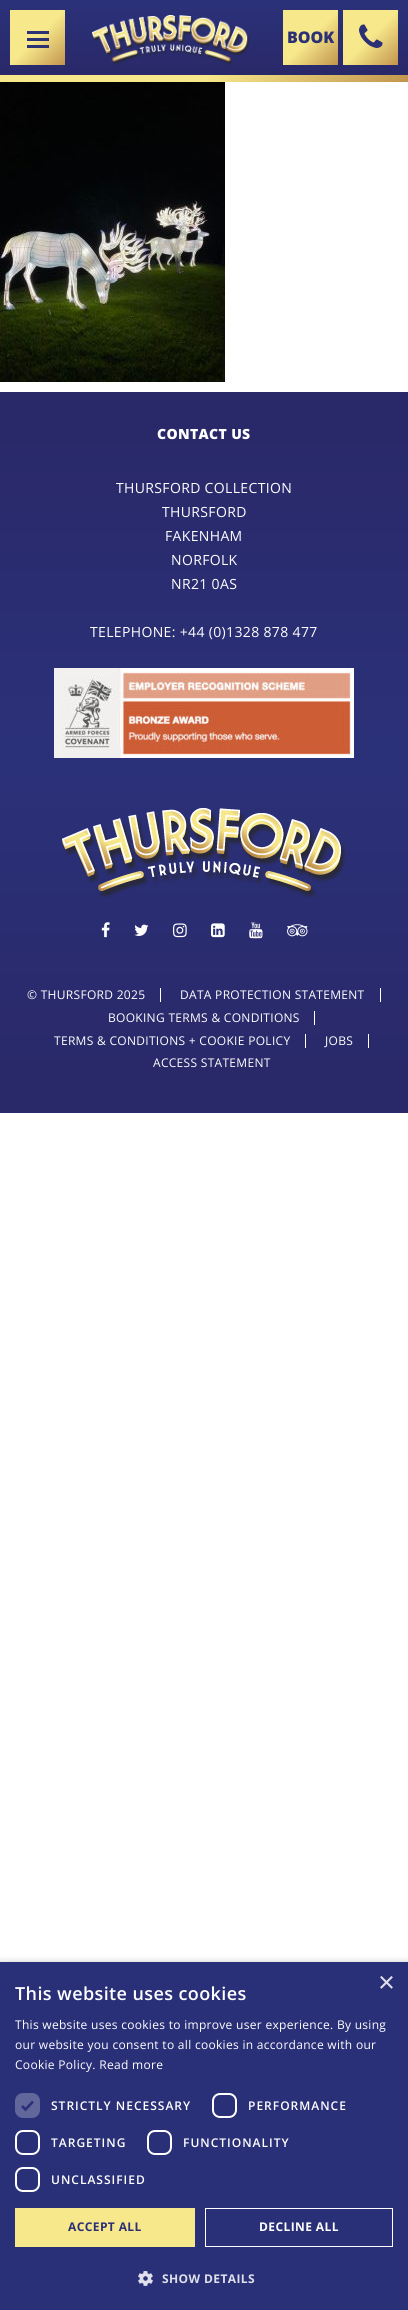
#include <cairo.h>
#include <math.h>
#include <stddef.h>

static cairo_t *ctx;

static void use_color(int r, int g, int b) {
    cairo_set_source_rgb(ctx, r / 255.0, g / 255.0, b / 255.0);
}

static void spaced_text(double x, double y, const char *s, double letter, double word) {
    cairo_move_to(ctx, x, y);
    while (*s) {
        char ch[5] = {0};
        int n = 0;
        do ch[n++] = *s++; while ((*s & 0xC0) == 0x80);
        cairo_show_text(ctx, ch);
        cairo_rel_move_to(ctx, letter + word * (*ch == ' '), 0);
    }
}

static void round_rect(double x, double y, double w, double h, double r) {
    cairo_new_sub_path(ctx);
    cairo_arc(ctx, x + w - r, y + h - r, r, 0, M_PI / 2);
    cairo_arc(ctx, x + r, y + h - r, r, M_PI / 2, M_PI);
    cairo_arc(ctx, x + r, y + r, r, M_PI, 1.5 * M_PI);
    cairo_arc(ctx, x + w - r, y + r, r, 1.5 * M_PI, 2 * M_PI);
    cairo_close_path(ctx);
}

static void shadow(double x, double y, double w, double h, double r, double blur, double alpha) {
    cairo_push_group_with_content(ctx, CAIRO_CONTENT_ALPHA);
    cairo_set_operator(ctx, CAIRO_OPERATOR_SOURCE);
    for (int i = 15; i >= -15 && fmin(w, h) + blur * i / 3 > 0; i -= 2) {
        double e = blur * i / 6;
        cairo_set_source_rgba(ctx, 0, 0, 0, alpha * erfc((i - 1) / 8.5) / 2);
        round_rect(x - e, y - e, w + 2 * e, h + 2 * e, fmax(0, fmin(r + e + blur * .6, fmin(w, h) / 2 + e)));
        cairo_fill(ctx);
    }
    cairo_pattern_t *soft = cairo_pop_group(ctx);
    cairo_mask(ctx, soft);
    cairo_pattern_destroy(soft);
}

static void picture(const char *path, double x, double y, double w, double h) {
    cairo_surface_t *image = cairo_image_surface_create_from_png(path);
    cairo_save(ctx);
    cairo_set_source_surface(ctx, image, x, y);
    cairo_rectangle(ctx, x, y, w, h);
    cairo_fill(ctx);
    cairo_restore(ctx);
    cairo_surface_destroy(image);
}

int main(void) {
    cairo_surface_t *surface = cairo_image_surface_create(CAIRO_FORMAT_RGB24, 408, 2310);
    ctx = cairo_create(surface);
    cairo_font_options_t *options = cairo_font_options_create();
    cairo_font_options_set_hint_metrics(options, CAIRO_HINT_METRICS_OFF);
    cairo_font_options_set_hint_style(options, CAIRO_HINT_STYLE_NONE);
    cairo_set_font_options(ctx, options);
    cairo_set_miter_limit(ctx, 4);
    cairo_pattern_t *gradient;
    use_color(255, 255, 255);
    cairo_paint(ctx);
    gradient = cairo_pattern_create_linear(204, 0, 204, 82);
    cairo_pattern_add_color_stop_rgba(gradient, 0, 0.169, 0.192, 0.475, 1);
    cairo_pattern_add_color_stop_rgba(gradient, 1, 0.161, 0.157, 0.408, 1);
    cairo_set_source(ctx, gradient);
    cairo_pattern_destroy(gradient);
    cairo_rectangle(ctx, 0, 0, 408, 75);
    cairo_fill(ctx);
    gradient = cairo_pattern_create_linear(10, 10, 65, 65);
    cairo_pattern_add_color_stop_rgba(gradient, 0, 0.969, 0.91, 0.545, 1);
    cairo_pattern_add_color_stop_rgba(gradient, 0.5, 0.969, 0.91, 0.545, 1);
    cairo_pattern_add_color_stop_rgba(gradient, 1, 0.761, 0.584, 0.306, 1);
    cairo_set_source(ctx, gradient);
    cairo_pattern_destroy(gradient);
    cairo_rectangle(ctx, 10, 10, 55, 55);
    cairo_fill(ctx);
    use_color(44, 48, 117);
    cairo_rectangle(ctx, 27, 38, 22, 3);
    cairo_fill(ctx);
    cairo_rectangle(ctx, 27, 31, 22, 3);
    cairo_fill(ctx);
    cairo_rectangle(ctx, 27, 45, 22, 3);
    cairo_fill(ctx);
    picture("img1.png", 92, 15, 158, 50);
    gradient = cairo_pattern_create_linear(283, 10, 338, 65);
    cairo_pattern_add_color_stop_rgba(gradient, 0, 0.969, 0.91, 0.545, 1);
    cairo_pattern_add_color_stop_rgba(gradient, 0.5, 0.969, 0.91, 0.545, 1);
    cairo_pattern_add_color_stop_rgba(gradient, 1, 0.761, 0.584, 0.306, 1);
    cairo_set_source(ctx, gradient);
    cairo_pattern_destroy(gradient);
    cairo_rectangle(ctx, 283, 10, 55, 55);
    cairo_fill(ctx);
    cairo_select_font_face(ctx, "Open Sans ExtraBold", CAIRO_FONT_SLANT_NORMAL, CAIRO_FONT_WEIGHT_NORMAL);
    cairo_set_font_size(ctx, 16);
    use_color(44, 48, 117);
    cairo_move_to(ctx, 287, 43);
    cairo_show_text(ctx, "BOOK");
    gradient = cairo_pattern_create_linear(343, 10, 398, 65);
    cairo_pattern_add_color_stop_rgba(gradient, 0, 0.969, 0.91, 0.545, 1);
    cairo_pattern_add_color_stop_rgba(gradient, 0.5, 0.969, 0.91, 0.545, 1);
    cairo_pattern_add_color_stop_rgba(gradient, 1, 0.761, 0.584, 0.306, 1);
    cairo_set_source(ctx, gradient);
    cairo_pattern_destroy(gradient);
    cairo_rectangle(ctx, 343, 10, 55, 55);
    cairo_fill(ctx);
    picture("img2.png", 359, 24, 24, 24);
    gradient = cairo_pattern_create_linear(100, -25, 308, 182);
    cairo_pattern_add_color_stop_rgba(gradient, 0, 0.969, 0.91, 0.545, 1);
    cairo_pattern_add_color_stop_rgba(gradient, 0.5, 0.969, 0.91, 0.545, 1);
    cairo_pattern_add_color_stop_rgba(gradient, 1, 0.761, 0.584, 0.306, 1);
    cairo_set_source(ctx, gradient);
    cairo_pattern_destroy(gradient);
    cairo_rectangle(ctx, 0, 75, 408, 7);
    cairo_fill(ctx);
    picture("img3.png", 0, 82, 225, 300);
    gradient = cairo_pattern_create_linear(204, 392, 204, 1113);
    cairo_pattern_add_color_stop_rgba(gradient, 0, 0.161, 0.157, 0.408, 1);
    cairo_pattern_add_color_stop_rgba(gradient, 0.5, 0.169, 0.192, 0.475, 1);
    cairo_pattern_add_color_stop_rgba(gradient, 1, 0.161, 0.157, 0.408, 1);
    cairo_set_source(ctx, gradient);
    cairo_pattern_destroy(gradient);
    cairo_rectangle(ctx, 0, 392, 408, 721);
    cairo_fill(ctx);
    cairo_set_font_size(ctx, 14);
    use_color(255, 255, 255);
    spaced_text(157, 439, "CONTACT US", 0.35, 0);
    cairo_select_font_face(ctx, "Open Sans", CAIRO_FONT_SLANT_NORMAL, CAIRO_FONT_WEIGHT_NORMAL);
    spaced_text(116, 493, "THURSFORD COLLECTION", 0.35, 0);
    spaced_text(162, 517, "THURSFORD", 0.35, 0);
    spaced_text(165, 541, "FAKENHAM", 0.35, 0);
    spaced_text(171, 565, "NORFOLK", 0.35, 0);
    spaced_text(171, 589, "NR21 0AS", 0.35, 0);
    spaced_text(90, 637, "TELEPHONE: +44 (0)1328 878 477", 0.35, 0);
    picture("img4.png", 54, 668, 300, 90);
    picture("img5.png", 62, 808, 284, 90);
    picture("img6.png", 101, 922, 9, 16);
    picture("img7.png", 134, 924, 15, 12);
    picture("img8.png", 173, 923, 14, 15);
    picture("img9.png", 211, 923, 14, 15);
    picture("img10.png", 249, 922, 14, 17);
    picture("img11.png", 287, 924, 21, 13);
    cairo_rectangle(ctx, 160, 988, 1, 14);
    cairo_fill(ctx);
    cairo_set_font_size(ctx, 12);
    spaced_text(27, 999, "© THURSFORD 2025", 0.3, 0);
    cairo_rectangle(ctx, 380, 988, 1, 14);
    cairo_fill(ctx);
    spaced_text(180, 999, "DATA PROTECTION STATEMENT", 0.3, 0);
    cairo_rectangle(ctx, 314, 1011, 1, 14);
    cairo_fill(ctx);
    spaced_text(108, 1022, "BOOKING TERMS & CONDITIONS", 0.3, 0);
    cairo_rectangle(ctx, 305, 1034, 1, 14);
    cairo_fill(ctx);
    spaced_text(54, 1045, "TERMS & CONDITIONS + COOKIE POLICY", 0.3, 0);
    cairo_rectangle(ctx, 368, 1034, 1, 14);
    cairo_fill(ctx);
    spaced_text(325, 1045, "JOBS", 0.3, 0);
    spaced_text(153, 1067, "ACCESS STATEMENT", 0.3, 0);
    use_color(0, 0, 0);
    shadow(1, 1964, 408, 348, 0, 4, 0.35);
    use_color(42, 48, 120);
    cairo_rectangle(ctx, 0, 1962, 408, 348);
    cairo_fill(ctx);
    cairo_select_font_face(ctx, "Liberation Sans", CAIRO_FONT_SLANT_NORMAL, CAIRO_FONT_WEIGHT_NORMAL);
    cairo_set_font_size(ctx, 29);
    use_color(223, 224, 235);
    cairo_move_to(ctx, 378, 1992);
    cairo_show_text(ctx, "×");
    cairo_select_font_face(ctx, "Open Sans SemiBold", CAIRO_FONT_SLANT_NORMAL, CAIRO_FONT_WEIGHT_NORMAL);
    cairo_set_font_size(ctx, 18);
    use_color(255, 255, 255);
    spaced_text(15, 2000, "This website uses cookies", 0.4, 0);
    cairo_select_font_face(ctx, "Open Sans", CAIRO_FONT_SLANT_NORMAL, CAIRO_FONT_WEIGHT_NORMAL);
    cairo_set_font_size(ctx, 12);
    spaced_text(15, 2029, "This website uses cookies to improve user experience. By using", 0.3, 0);
    spaced_text(15, 2049, "our website you consent to all cookies in accordance with our", 0.3, 0);
    spaced_text(15, 2069, "Cookie Policy. Read more", 0.3, 0);
    use_color(97, 102, 155);
    round_rect(15, 2093, 25, 25, 8);
    cairo_fill(ctx);
    cairo_new_path(ctx);
    cairo_move_to(ctx, 22, 2106);
    cairo_line_to(ctx, 25.5, 2109.5);
    cairo_line_to(ctx, 33, 2101.5);
    use_color(42, 48, 120);
    cairo_set_line_width(ctx, 2.6);
    cairo_stroke(ctx);
    cairo_select_font_face(ctx, "Open Sans SemiBold", CAIRO_FONT_SLANT_NORMAL, CAIRO_FONT_WEIGHT_NORMAL);
    use_color(255, 255, 255);
    spaced_text(51, 2110, "STRICTLY NECESSARY", 1, 0);
    round_rect(213, 2094, 23, 23, 7);
    cairo_set_line_width(ctx, 2);
    cairo_stroke(ctx);
    spaced_text(248, 2110, "PERFORMANCE", 1, 0);
    round_rect(16, 2131, 23, 23, 7);
    cairo_stroke(ctx);
    spaced_text(51, 2147, "TARGETING", 1, 0);
    round_rect(148, 2131, 23, 23, 7);
    cairo_stroke(ctx);
    spaced_text(183, 2147, "FUNCTIONALITY", 1, 0);
    round_rect(16, 2168, 23, 23, 7);
    cairo_stroke(ctx);
    spaced_text(51, 2184, "UNCLASSIFIED", 1, 0);
    use_color(247, 232, 139);
    cairo_rectangle(ctx, 15, 2208, 180, 39);
    cairo_fill(ctx);
    cairo_select_font_face(ctx, "Open Sans", CAIRO_FONT_SLANT_NORMAL, CAIRO_FONT_WEIGHT_BOLD);
    use_color(44, 48, 117);
    spaced_text(68, 2231, "ACCEPT ALL", 0.4, 0);
    cairo_rectangle(ctx, 205.5, 2208.5, 187, 38);
    use_color(255, 255, 255);
    cairo_set_line_width(ctx, 1);
    cairo_stroke(ctx);
    spaced_text(259, 2231, "DECLINE ALL", 0.4, 0);
    picture("img12.png", 138, 2271, 15, 15);
    use_color(223, 224, 235);
    spaced_text(162, 2283, "SHOW DETAILS", 0.4, 0);
    cairo_surface_write_to_png(surface, "result.png");
    cairo_font_options_destroy(options);
    cairo_destroy(ctx);
    cairo_surface_destroy(surface);
    return 0;
}
